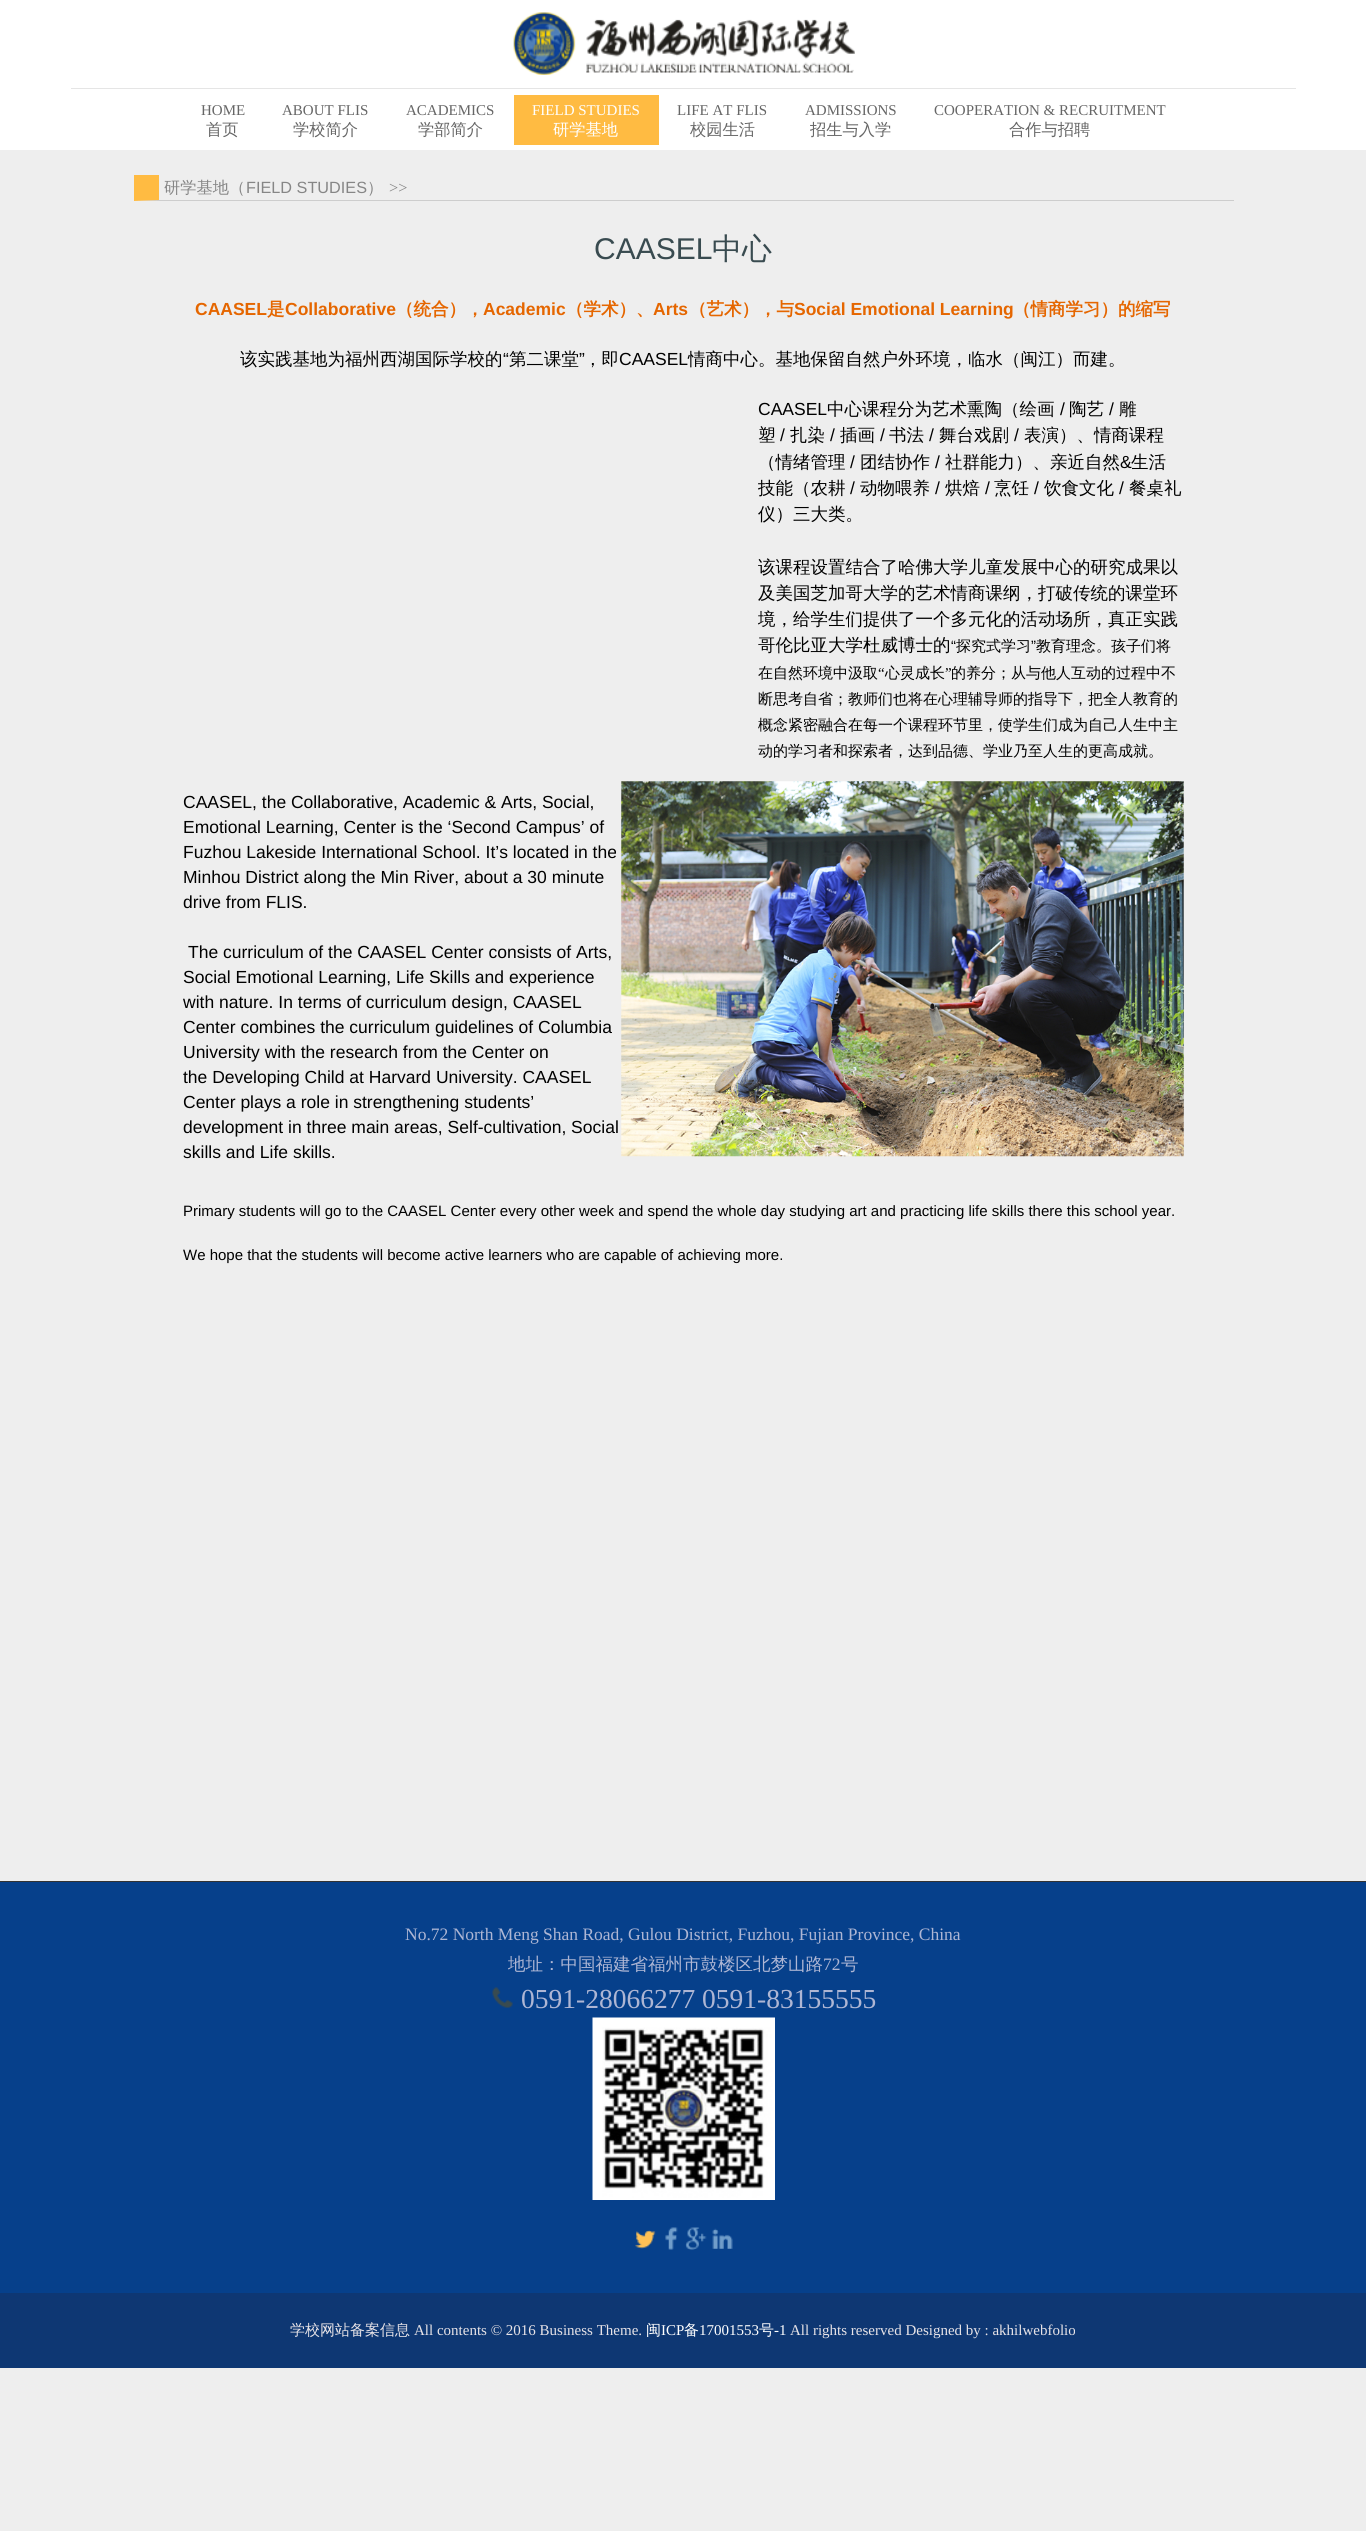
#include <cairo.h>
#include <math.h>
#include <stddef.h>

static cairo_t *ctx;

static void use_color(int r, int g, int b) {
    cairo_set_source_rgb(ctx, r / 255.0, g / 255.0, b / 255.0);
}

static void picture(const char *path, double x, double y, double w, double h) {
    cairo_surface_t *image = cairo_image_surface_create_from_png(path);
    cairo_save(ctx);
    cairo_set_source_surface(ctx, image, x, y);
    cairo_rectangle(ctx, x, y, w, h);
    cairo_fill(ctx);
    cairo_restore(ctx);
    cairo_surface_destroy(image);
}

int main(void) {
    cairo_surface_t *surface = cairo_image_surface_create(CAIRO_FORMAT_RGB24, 1366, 2531);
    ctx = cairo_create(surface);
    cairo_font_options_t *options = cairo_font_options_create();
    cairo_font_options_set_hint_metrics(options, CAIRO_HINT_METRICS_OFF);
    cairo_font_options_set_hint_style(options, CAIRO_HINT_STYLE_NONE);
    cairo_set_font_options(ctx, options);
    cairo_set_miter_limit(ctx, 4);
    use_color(238, 238, 238);
    cairo_paint(ctx);
    use_color(255, 255, 255);
    cairo_rectangle(ctx, 0, 0, 1366, 150);
    cairo_fill(ctx);
    use_color(229, 229, 229);
    cairo_rectangle(ctx, 71, 88, 1225, 1);
    cairo_fill(ctx);
    picture("img1.png", 513, 12, 342, 63);
    cairo_select_font_face(ctx, "Liberation Serif", CAIRO_FONT_SLANT_NORMAL, CAIRO_FONT_WEIGHT_NORMAL);
    cairo_set_font_size(ctx, 15);
    use_color(102, 102, 102);
    cairo_move_to(ctx, 201, 115);
    cairo_show_text(ctx, "HOME");
    cairo_select_font_face(ctx, "WenQuanYi Zen Hei Medium", CAIRO_FONT_SLANT_NORMAL, CAIRO_FONT_WEIGHT_NORMAL);
    cairo_set_font_size(ctx, 16.25);
    cairo_move_to(ctx, 206, 135);
    cairo_show_text(ctx, "首页");
    cairo_select_font_face(ctx, "Liberation Serif", CAIRO_FONT_SLANT_NORMAL, CAIRO_FONT_WEIGHT_NORMAL);
    cairo_set_font_size(ctx, 15);
    cairo_move_to(ctx, 282, 115);
    cairo_show_text(ctx, "ABOUT FLIS");
    cairo_select_font_face(ctx, "WenQuanYi Zen Hei Medium", CAIRO_FONT_SLANT_NORMAL, CAIRO_FONT_WEIGHT_NORMAL);
    cairo_set_font_size(ctx, 16.25);
    cairo_move_to(ctx, 293, 135);
    cairo_show_text(ctx, "学校简介");
    cairo_select_font_face(ctx, "Liberation Serif", CAIRO_FONT_SLANT_NORMAL, CAIRO_FONT_WEIGHT_NORMAL);
    cairo_set_font_size(ctx, 15);
    cairo_move_to(ctx, 406, 115);
    cairo_show_text(ctx, "ACADEMICS");
    cairo_select_font_face(ctx, "WenQuanYi Zen Hei Medium", CAIRO_FONT_SLANT_NORMAL, CAIRO_FONT_WEIGHT_NORMAL);
    cairo_set_font_size(ctx, 16.25);
    cairo_move_to(ctx, 418, 135);
    cairo_show_text(ctx, "学部简介");
    use_color(255, 187, 66);
    cairo_rectangle(ctx, 514, 95, 145, 50);
    cairo_fill(ctx);
    cairo_select_font_face(ctx, "Liberation Serif", CAIRO_FONT_SLANT_NORMAL, CAIRO_FONT_WEIGHT_NORMAL);
    cairo_set_font_size(ctx, 15);
    use_color(255, 255, 255);
    cairo_move_to(ctx, 532, 115);
    cairo_show_text(ctx, "FIELD STUDIES");
    cairo_select_font_face(ctx, "WenQuanYi Zen Hei Medium", CAIRO_FONT_SLANT_NORMAL, CAIRO_FONT_WEIGHT_NORMAL);
    cairo_set_font_size(ctx, 16.25);
    cairo_move_to(ctx, 553, 135);
    cairo_show_text(ctx, "研学基地");
    cairo_select_font_face(ctx, "Liberation Serif", CAIRO_FONT_SLANT_NORMAL, CAIRO_FONT_WEIGHT_NORMAL);
    cairo_set_font_size(ctx, 15);
    use_color(102, 102, 102);
    cairo_move_to(ctx, 677, 115);
    cairo_show_text(ctx, "LIFE AT FLIS");
    cairo_select_font_face(ctx, "WenQuanYi Zen Hei Medium", CAIRO_FONT_SLANT_NORMAL, CAIRO_FONT_WEIGHT_NORMAL);
    cairo_set_font_size(ctx, 16.25);
    cairo_move_to(ctx, 690, 135);
    cairo_show_text(ctx, "校园生活");
    cairo_select_font_face(ctx, "Liberation Serif", CAIRO_FONT_SLANT_NORMAL, CAIRO_FONT_WEIGHT_NORMAL);
    cairo_set_font_size(ctx, 15);
    cairo_move_to(ctx, 805, 115);
    cairo_show_text(ctx, "ADMISSIONS");
    cairo_select_font_face(ctx, "WenQuanYi Zen Hei Medium", CAIRO_FONT_SLANT_NORMAL, CAIRO_FONT_WEIGHT_NORMAL);
    cairo_set_font_size(ctx, 16.25);
    cairo_move_to(ctx, 810, 135);
    cairo_show_text(ctx, "招生与入学");
    cairo_select_font_face(ctx, "Liberation Serif", CAIRO_FONT_SLANT_NORMAL, CAIRO_FONT_WEIGHT_NORMAL);
    cairo_set_font_size(ctx, 15);
    cairo_move_to(ctx, 934, 115);
    cairo_show_text(ctx, "COOPERATION & RECRUITMENT");
    cairo_select_font_face(ctx, "WenQuanYi Zen Hei Medium", CAIRO_FONT_SLANT_NORMAL, CAIRO_FONT_WEIGHT_NORMAL);
    cairo_set_font_size(ctx, 16.25);
    cairo_move_to(ctx, 1009, 135);
    cairo_show_text(ctx, "合作与招聘");
    use_color(205, 205, 205);
    cairo_new_path(ctx);
    cairo_move_to(ctx, 1234, 201);
    cairo_line_to(ctx, 134, 201);
    cairo_line_to(ctx, 159, 200);
    cairo_line_to(ctx, 1234, 200);
    cairo_close_path(ctx);
    cairo_fill(ctx);
    use_color(255, 187, 66);
    cairo_new_path(ctx);
    cairo_move_to(ctx, 134, 201);
    cairo_line_to(ctx, 134, 175);
    cairo_line_to(ctx, 159, 175);
    cairo_line_to(ctx, 159, 200);
    cairo_close_path(ctx);
    cairo_fill(ctx);
    use_color(134, 134, 134);
    cairo_move_to(ctx, 164, 193);
    cairo_show_text(ctx, "研学基地（");
    cairo_select_font_face(ctx, "Liberation Sans", CAIRO_FONT_SLANT_NORMAL, CAIRO_FONT_WEIGHT_NORMAL);
    cairo_move_to(ctx, 246, 193);
    cairo_show_text(ctx, "FIELD STUDIES");
    cairo_select_font_face(ctx, "WenQuanYi Zen Hei Medium", CAIRO_FONT_SLANT_NORMAL, CAIRO_FONT_WEIGHT_NORMAL);
    cairo_move_to(ctx, 367, 193);
    cairo_show_text(ctx, "）");
    cairo_select_font_face(ctx, "Liberation Serif", CAIRO_FONT_SLANT_NORMAL, CAIRO_FONT_WEIGHT_NORMAL);
    cairo_move_to(ctx, 389, 193);
    cairo_show_text(ctx, ">>");
    cairo_select_font_face(ctx, "Liberation Sans", CAIRO_FONT_SLANT_NORMAL, CAIRO_FONT_WEIGHT_NORMAL);
    cairo_set_font_size(ctx, 30);
    use_color(57, 75, 80);
    cairo_move_to(ctx, 594, 259);
    cairo_show_text(ctx, "CAASEL");
    cairo_select_font_face(ctx, "WenQuanYi Zen Hei Medium", CAIRO_FONT_SLANT_NORMAL, CAIRO_FONT_WEIGHT_NORMAL);
    cairo_move_to(ctx, 712, 259);
    cairo_show_text(ctx, "中心");
    cairo_select_font_face(ctx, "Liberation Sans", CAIRO_FONT_SLANT_NORMAL, CAIRO_FONT_WEIGHT_BOLD);
    cairo_set_font_size(ctx, 17.5);
    use_color(229, 102, 0);
    cairo_move_to(ctx, 195, 315);
    cairo_show_text(ctx, "CAASEL");
    cairo_select_font_face(ctx, "WenQuanYi Zen Hei", CAIRO_FONT_SLANT_NORMAL, CAIRO_FONT_WEIGHT_BOLD);
    cairo_move_to(ctx, 267, 315);
    cairo_show_text(ctx, "是");
    cairo_select_font_face(ctx, "Liberation Sans", CAIRO_FONT_SLANT_NORMAL, CAIRO_FONT_WEIGHT_BOLD);
    cairo_move_to(ctx, 285, 315);
    cairo_show_text(ctx, "Collaborative");
    cairo_select_font_face(ctx, "WenQuanYi Zen Hei", CAIRO_FONT_SLANT_NORMAL, CAIRO_FONT_WEIGHT_BOLD);
    cairo_move_to(ctx, 396, 315);
    cairo_show_text(ctx, "（统合），");
    cairo_select_font_face(ctx, "Liberation Sans", CAIRO_FONT_SLANT_NORMAL, CAIRO_FONT_WEIGHT_BOLD);
    cairo_move_to(ctx, 483, 315);
    cairo_show_text(ctx, "Academic");
    cairo_select_font_face(ctx, "WenQuanYi Zen Hei", CAIRO_FONT_SLANT_NORMAL, CAIRO_FONT_WEIGHT_BOLD);
    cairo_move_to(ctx, 566, 315);
    cairo_show_text(ctx, "（学术）、");
    cairo_select_font_face(ctx, "Liberation Sans", CAIRO_FONT_SLANT_NORMAL, CAIRO_FONT_WEIGHT_BOLD);
    cairo_move_to(ctx, 653, 315);
    cairo_show_text(ctx, "Arts");
    cairo_select_font_face(ctx, "WenQuanYi Zen Hei", CAIRO_FONT_SLANT_NORMAL, CAIRO_FONT_WEIGHT_BOLD);
    cairo_move_to(ctx, 689, 315);
    cairo_show_text(ctx, "（艺术），与");
    cairo_select_font_face(ctx, "Liberation Sans", CAIRO_FONT_SLANT_NORMAL, CAIRO_FONT_WEIGHT_BOLD);
    cairo_move_to(ctx, 794, 315);
    cairo_show_text(ctx, "Social Emotional Learning");
    cairo_select_font_face(ctx, "WenQuanYi Zen Hei", CAIRO_FONT_SLANT_NORMAL, CAIRO_FONT_WEIGHT_BOLD);
    cairo_move_to(ctx, 1013, 315);
    cairo_show_text(ctx, "（情商学习）的缩写");
    cairo_select_font_face(ctx, "WenQuanYi Zen Hei Medium", CAIRO_FONT_SLANT_NORMAL, CAIRO_FONT_WEIGHT_NORMAL);
    use_color(0, 0, 0);
    cairo_move_to(ctx, 240, 365);
    cairo_show_text(ctx, "该实践基地为福州西湖国际学校的");
    cairo_select_font_face(ctx, "Liberation Sans", CAIRO_FONT_SLANT_NORMAL, CAIRO_FONT_WEIGHT_NORMAL);
    cairo_move_to(ctx, 503, 365);
    cairo_show_text(ctx, "“");
    cairo_select_font_face(ctx, "WenQuanYi Zen Hei Medium", CAIRO_FONT_SLANT_NORMAL, CAIRO_FONT_WEIGHT_NORMAL);
    cairo_move_to(ctx, 509, 365);
    cairo_show_text(ctx, "第二课堂");
    cairo_select_font_face(ctx, "Liberation Sans", CAIRO_FONT_SLANT_NORMAL, CAIRO_FONT_WEIGHT_NORMAL);
    cairo_move_to(ctx, 579, 365);
    cairo_show_text(ctx, "”");
    cairo_select_font_face(ctx, "WenQuanYi Zen Hei Medium", CAIRO_FONT_SLANT_NORMAL, CAIRO_FONT_WEIGHT_NORMAL);
    cairo_move_to(ctx, 584, 365);
    cairo_show_text(ctx, "，即");
    cairo_select_font_face(ctx, "Liberation Sans", CAIRO_FONT_SLANT_NORMAL, CAIRO_FONT_WEIGHT_NORMAL);
    cairo_move_to(ctx, 619, 365);
    cairo_show_text(ctx, "CAASEL");
    cairo_select_font_face(ctx, "WenQuanYi Zen Hei Medium", CAIRO_FONT_SLANT_NORMAL, CAIRO_FONT_WEIGHT_NORMAL);
    cairo_move_to(ctx, 688, 365);
    cairo_show_text(ctx, "情商中心。基地保留自然户外环境，临水（闽江）而建。");
    cairo_select_font_face(ctx, "Liberation Sans", CAIRO_FONT_SLANT_NORMAL, CAIRO_FONT_WEIGHT_NORMAL);
    cairo_move_to(ctx, 758, 415);
    cairo_show_text(ctx, "CAASEL");
    cairo_select_font_face(ctx, "WenQuanYi Zen Hei Medium", CAIRO_FONT_SLANT_NORMAL, CAIRO_FONT_WEIGHT_NORMAL);
    cairo_move_to(ctx, 827, 415);
    cairo_show_text(ctx, "中心课程分为艺术熏陶（绘画");
    cairo_select_font_face(ctx, "Liberation Sans", CAIRO_FONT_SLANT_NORMAL, CAIRO_FONT_WEIGHT_NORMAL);
    cairo_move_to(ctx, 1060, 415);
    cairo_show_text(ctx, "/");
    cairo_select_font_face(ctx, "WenQuanYi Zen Hei Medium", CAIRO_FONT_SLANT_NORMAL, CAIRO_FONT_WEIGHT_NORMAL);
    cairo_move_to(ctx, 1069, 415);
    cairo_show_text(ctx, "陶艺");
    cairo_select_font_face(ctx, "Liberation Sans", CAIRO_FONT_SLANT_NORMAL, CAIRO_FONT_WEIGHT_NORMAL);
    cairo_move_to(ctx, 1109, 415);
    cairo_show_text(ctx, "/");
    cairo_select_font_face(ctx, "WenQuanYi Zen Hei Medium", CAIRO_FONT_SLANT_NORMAL, CAIRO_FONT_WEIGHT_NORMAL);
    cairo_move_to(ctx, 1119, 415);
    cairo_show_text(ctx, "雕");
    cairo_move_to(ctx, 758, 441);
    cairo_show_text(ctx, "塑");
    cairo_select_font_face(ctx, "Liberation Sans", CAIRO_FONT_SLANT_NORMAL, CAIRO_FONT_WEIGHT_NORMAL);
    cairo_move_to(ctx, 780, 441);
    cairo_show_text(ctx, "/");
    cairo_select_font_face(ctx, "WenQuanYi Zen Hei Medium", CAIRO_FONT_SLANT_NORMAL, CAIRO_FONT_WEIGHT_NORMAL);
    cairo_move_to(ctx, 790, 441);
    cairo_show_text(ctx, "扎染");
    cairo_select_font_face(ctx, "Liberation Sans", CAIRO_FONT_SLANT_NORMAL, CAIRO_FONT_WEIGHT_NORMAL);
    cairo_move_to(ctx, 830, 441);
    cairo_show_text(ctx, "/");
    cairo_select_font_face(ctx, "WenQuanYi Zen Hei Medium", CAIRO_FONT_SLANT_NORMAL, CAIRO_FONT_WEIGHT_NORMAL);
    cairo_move_to(ctx, 840, 441);
    cairo_show_text(ctx, "插画");
    cairo_select_font_face(ctx, "Liberation Sans", CAIRO_FONT_SLANT_NORMAL, CAIRO_FONT_WEIGHT_NORMAL);
    cairo_move_to(ctx, 880, 441);
    cairo_show_text(ctx, "/");
    cairo_select_font_face(ctx, "WenQuanYi Zen Hei Medium", CAIRO_FONT_SLANT_NORMAL, CAIRO_FONT_WEIGHT_NORMAL);
    cairo_move_to(ctx, 889, 441);
    cairo_show_text(ctx, "书法");
    cairo_select_font_face(ctx, "Liberation Sans", CAIRO_FONT_SLANT_NORMAL, CAIRO_FONT_WEIGHT_NORMAL);
    cairo_move_to(ctx, 929, 441);
    cairo_show_text(ctx, "/");
    cairo_select_font_face(ctx, "WenQuanYi Zen Hei Medium", CAIRO_FONT_SLANT_NORMAL, CAIRO_FONT_WEIGHT_NORMAL);
    cairo_move_to(ctx, 939, 441);
    cairo_show_text(ctx, "舞台戏剧");
    cairo_select_font_face(ctx, "Liberation Sans", CAIRO_FONT_SLANT_NORMAL, CAIRO_FONT_WEIGHT_NORMAL);
    cairo_move_to(ctx, 1014, 441);
    cairo_show_text(ctx, "/");
    cairo_select_font_face(ctx, "WenQuanYi Zen Hei Medium", CAIRO_FONT_SLANT_NORMAL, CAIRO_FONT_WEIGHT_NORMAL);
    cairo_move_to(ctx, 1024, 441);
    cairo_show_text(ctx, "表演）、情商课程");
    cairo_move_to(ctx, 758, 468);
    cairo_show_text(ctx, "（情绪管理");
    cairo_select_font_face(ctx, "Liberation Sans", CAIRO_FONT_SLANT_NORMAL, CAIRO_FONT_WEIGHT_NORMAL);
    cairo_move_to(ctx, 850, 468);
    cairo_show_text(ctx, "/");
    cairo_select_font_face(ctx, "WenQuanYi Zen Hei Medium", CAIRO_FONT_SLANT_NORMAL, CAIRO_FONT_WEIGHT_NORMAL);
    cairo_move_to(ctx, 860, 468);
    cairo_show_text(ctx, "团结协作");
    cairo_select_font_face(ctx, "Liberation Sans", CAIRO_FONT_SLANT_NORMAL, CAIRO_FONT_WEIGHT_NORMAL);
    cairo_move_to(ctx, 935, 468);
    cairo_show_text(ctx, "/");
    cairo_select_font_face(ctx, "WenQuanYi Zen Hei Medium", CAIRO_FONT_SLANT_NORMAL, CAIRO_FONT_WEIGHT_NORMAL);
    cairo_move_to(ctx, 945, 468);
    cairo_show_text(ctx, "社群能力）、亲近自然");
    cairo_select_font_face(ctx, "Liberation Sans", CAIRO_FONT_SLANT_NORMAL, CAIRO_FONT_WEIGHT_NORMAL);
    cairo_move_to(ctx, 1120, 468);
    cairo_show_text(ctx, "&");
    cairo_select_font_face(ctx, "WenQuanYi Zen Hei Medium", CAIRO_FONT_SLANT_NORMAL, CAIRO_FONT_WEIGHT_NORMAL);
    cairo_move_to(ctx, 1131, 468);
    cairo_show_text(ctx, "生活");
    cairo_move_to(ctx, 758, 494);
    cairo_show_text(ctx, "技能（农耕");
    cairo_select_font_face(ctx, "Liberation Sans", CAIRO_FONT_SLANT_NORMAL, CAIRO_FONT_WEIGHT_NORMAL);
    cairo_move_to(ctx, 850, 494);
    cairo_show_text(ctx, "/");
    cairo_select_font_face(ctx, "WenQuanYi Zen Hei Medium", CAIRO_FONT_SLANT_NORMAL, CAIRO_FONT_WEIGHT_NORMAL);
    cairo_move_to(ctx, 860, 494);
    cairo_show_text(ctx, "动物喂养");
    cairo_select_font_face(ctx, "Liberation Sans", CAIRO_FONT_SLANT_NORMAL, CAIRO_FONT_WEIGHT_NORMAL);
    cairo_move_to(ctx, 935, 494);
    cairo_show_text(ctx, "/");
    cairo_select_font_face(ctx, "WenQuanYi Zen Hei Medium", CAIRO_FONT_SLANT_NORMAL, CAIRO_FONT_WEIGHT_NORMAL);
    cairo_move_to(ctx, 945, 494);
    cairo_show_text(ctx, "烘焙");
    cairo_select_font_face(ctx, "Liberation Sans", CAIRO_FONT_SLANT_NORMAL, CAIRO_FONT_WEIGHT_NORMAL);
    cairo_move_to(ctx, 985, 494);
    cairo_show_text(ctx, "/");
    cairo_select_font_face(ctx, "WenQuanYi Zen Hei Medium", CAIRO_FONT_SLANT_NORMAL, CAIRO_FONT_WEIGHT_NORMAL);
    cairo_move_to(ctx, 994, 494);
    cairo_show_text(ctx, "烹饪");
    cairo_select_font_face(ctx, "Liberation Sans", CAIRO_FONT_SLANT_NORMAL, CAIRO_FONT_WEIGHT_NORMAL);
    cairo_move_to(ctx, 1034, 494);
    cairo_show_text(ctx, "/");
    cairo_select_font_face(ctx, "WenQuanYi Zen Hei Medium", CAIRO_FONT_SLANT_NORMAL, CAIRO_FONT_WEIGHT_NORMAL);
    cairo_move_to(ctx, 1044, 494);
    cairo_show_text(ctx, "饮食文化");
    cairo_select_font_face(ctx, "Liberation Sans", CAIRO_FONT_SLANT_NORMAL, CAIRO_FONT_WEIGHT_NORMAL);
    cairo_move_to(ctx, 1119, 494);
    cairo_show_text(ctx, "/");
    cairo_select_font_face(ctx, "WenQuanYi Zen Hei Medium", CAIRO_FONT_SLANT_NORMAL, CAIRO_FONT_WEIGHT_NORMAL);
    cairo_move_to(ctx, 1129, 494);
    cairo_show_text(ctx, "餐桌礼");
    cairo_move_to(ctx, 758, 520);
    cairo_show_text(ctx, "仪）三大类。");
    cairo_move_to(ctx, 758, 573);
    cairo_show_text(ctx, "该课程设置结合了哈佛大学儿童发展中心的研究成果以");
    cairo_move_to(ctx, 758, 599);
    cairo_show_text(ctx, "及美国芝加哥大学的艺术情商课纲，打破传统的课堂环");
    cairo_move_to(ctx, 758, 625);
    cairo_show_text(ctx, "境，给学生们提供了一个多元化的活动场所，真正实践");
    cairo_move_to(ctx, 758, 651);
    cairo_show_text(ctx, "哥伦比亚大学杜威博士的");
    cairo_select_font_face(ctx, "Liberation Sans", CAIRO_FONT_SLANT_NORMAL, CAIRO_FONT_WEIGHT_NORMAL);
    cairo_set_font_size(ctx, 15);
    cairo_move_to(ctx, 951, 651);
    cairo_show_text(ctx, "“");
    cairo_select_font_face(ctx, "WenQuanYi Zen Hei Medium", CAIRO_FONT_SLANT_NORMAL, CAIRO_FONT_WEIGHT_NORMAL);
    cairo_move_to(ctx, 956, 651);
    cairo_show_text(ctx, "探究式学习");
    cairo_select_font_face(ctx, "Liberation Sans", CAIRO_FONT_SLANT_NORMAL, CAIRO_FONT_WEIGHT_NORMAL);
    cairo_move_to(ctx, 1031, 651);
    cairo_show_text(ctx, "”");
    cairo_select_font_face(ctx, "WenQuanYi Zen Hei Medium", CAIRO_FONT_SLANT_NORMAL, CAIRO_FONT_WEIGHT_NORMAL);
    cairo_move_to(ctx, 1036, 651);
    cairo_show_text(ctx, "教育理念。孩子们将");
    cairo_move_to(ctx, 758, 678);
    cairo_show_text(ctx, "在自然环境中汲取");
    cairo_select_font_face(ctx, "Liberation Serif", CAIRO_FONT_SLANT_NORMAL, CAIRO_FONT_WEIGHT_NORMAL);
    cairo_move_to(ctx, 878, 678);
    cairo_show_text(ctx, "“");
    cairo_select_font_face(ctx, "WenQuanYi Zen Hei Medium", CAIRO_FONT_SLANT_NORMAL, CAIRO_FONT_WEIGHT_NORMAL);
    cairo_move_to(ctx, 885, 678);
    cairo_show_text(ctx, "心灵成长");
    cairo_select_font_face(ctx, "Liberation Serif", CAIRO_FONT_SLANT_NORMAL, CAIRO_FONT_WEIGHT_NORMAL);
    cairo_move_to(ctx, 945, 678);
    cairo_show_text(ctx, "”");
    cairo_select_font_face(ctx, "WenQuanYi Zen Hei Medium", CAIRO_FONT_SLANT_NORMAL, CAIRO_FONT_WEIGHT_NORMAL);
    cairo_move_to(ctx, 951, 678);
    cairo_show_text(ctx, "的养分；从与他人互动的过程中不");
    cairo_move_to(ctx, 758, 704);
    cairo_show_text(ctx, "断思考自省；教师们也将在心理辅导师的指导下，把全人教育的");
    cairo_move_to(ctx, 758, 730);
    cairo_show_text(ctx, "概念紧密融合在每一个课程环节里，使学生们成为自己人生中主");
    cairo_move_to(ctx, 758, 756);
    cairo_show_text(ctx, "动的学习者和探索者，达到品德、学业乃至人生的更高成就。");
    cairo_select_font_face(ctx, "Liberation Sans", CAIRO_FONT_SLANT_NORMAL, CAIRO_FONT_WEIGHT_NORMAL);
    cairo_set_font_size(ctx, 17.5);
    cairo_move_to(ctx, 183, 808);
    cairo_show_text(ctx, "CAASEL, the Collaborative, Academic & Arts, Social,");
    cairo_move_to(ctx, 183, 833);
    cairo_show_text(ctx, "Emotional Learning, Center is the ‘Second Campus’ of");
    cairo_move_to(ctx, 183, 858);
    cairo_show_text(ctx, "Fuzhou Lakeside International School. It’s located in the");
    cairo_move_to(ctx, 183, 883);
    cairo_show_text(ctx, "Minhou District along the Min River, about a 30 minute");
    cairo_move_to(ctx, 183, 908);
    cairo_show_text(ctx, "drive from FLIS.");
    picture("img2.png", 621, 781, 563, 376);
    cairo_move_to(ctx, 188, 958);
    cairo_show_text(ctx, "The curriculum of the CAASEL Center consists of Arts,");
    cairo_move_to(ctx, 183, 983);
    cairo_show_text(ctx, "Social Emotional Learning, Life Skills and experience");
    cairo_move_to(ctx, 183, 1008);
    cairo_show_text(ctx, "with nature. In terms of curriculum design, CAASEL");
    cairo_move_to(ctx, 183, 1033);
    cairo_show_text(ctx, "Center combines the curriculum guidelines of Columbia");
    cairo_move_to(ctx, 183, 1058);
    cairo_show_text(ctx, "University with the research from the Center on");
    cairo_move_to(ctx, 183, 1083);
    cairo_show_text(ctx, "the Developing Child at Harvard University. CAASEL");
    cairo_move_to(ctx, 183, 1108);
    cairo_show_text(ctx, "Center plays a role in strengthening students’");
    cairo_move_to(ctx, 183, 1133);
    cairo_show_text(ctx, "development in three main areas, Self-cultivation, Social");
    cairo_move_to(ctx, 183, 1158);
    cairo_show_text(ctx, "skills and Life skills.");
    cairo_set_font_size(ctx, 15);
    cairo_move_to(ctx, 183, 1216);
    cairo_show_text(ctx, "Primary students will go to the CAASEL Center every other week and spend the whole day studying art and practicing life skills there this school year.");
    cairo_move_to(ctx, 183, 1260);
    cairo_show_text(ctx, "We hope that the students will become active learners who are capable of achieving more.");
    use_color(6, 64, 139);
    cairo_rectangle(ctx, 0, 1882, 1366, 411);
    cairo_fill(ctx);
    use_color(51, 51, 51);
    cairo_rectangle(ctx, 0, 1881, 1366, 1);
    cairo_fill(ctx);
    cairo_select_font_face(ctx, "Liberation Serif", CAIRO_FONT_SLANT_NORMAL, CAIRO_FONT_WEIGHT_NORMAL);
    cairo_set_font_size(ctx, 17.5);
    use_color(174, 182, 212);
    cairo_move_to(ctx, 405, 1940);
    cairo_show_text(ctx, "No.72 North Meng Shan Road, Gulou District, Fuzhou, Fujian Province, China");
    cairo_select_font_face(ctx, "WenQuanYi Zen Hei Medium", CAIRO_FONT_SLANT_NORMAL, CAIRO_FONT_WEIGHT_NORMAL);
    cairo_move_to(ctx, 508, 1970);
    cairo_show_text(ctx, "地址：中国福建省福州市鼓楼区北梦山路");
    cairo_select_font_face(ctx, "Liberation Serif", CAIRO_FONT_SLANT_NORMAL, CAIRO_FONT_WEIGHT_NORMAL);
    cairo_move_to(ctx, 823, 1970);
    cairo_show_text(ctx, "72");
    cairo_select_font_face(ctx, "WenQuanYi Zen Hei Medium", CAIRO_FONT_SLANT_NORMAL, CAIRO_FONT_WEIGHT_NORMAL);
    cairo_move_to(ctx, 841, 1970);
    cairo_show_text(ctx, "号");
    picture("img3.png", 492, 1987, 21, 21);
    cairo_select_font_face(ctx, "Liberation Serif", CAIRO_FONT_SLANT_NORMAL, CAIRO_FONT_WEIGHT_NORMAL);
    cairo_set_font_size(ctx, 27.5);
    cairo_move_to(ctx, 521, 2008);
    cairo_show_text(ctx, "0591-28066277 0591-83155555");
    picture("img4.png", 592, 2017, 183, 183);
    picture("img5.png", 635, 2230, 21, 19);
    picture("img6.png", 665, 2227, 13, 23);
    picture("img7.png", 685, 2227, 22, 23);
    picture("img8.png", 712, 2228, 21, 21);
    use_color(14, 55, 115);
    cairo_rectangle(ctx, 0, 2293, 1366, 75);
    cairo_fill(ctx);
    cairo_select_font_face(ctx, "WenQuanYi Zen Hei Medium", CAIRO_FONT_SLANT_NORMAL, CAIRO_FONT_WEIGHT_NORMAL);
    cairo_set_font_size(ctx, 15);
    use_color(231, 227, 231);
    cairo_move_to(ctx, 290, 2335);
    cairo_show_text(ctx, "学校网站备案信息");
    cairo_select_font_face(ctx, "Liberation Serif", CAIRO_FONT_SLANT_NORMAL, CAIRO_FONT_WEIGHT_NORMAL);
    cairo_move_to(ctx, 414, 2335);
    cairo_show_text(ctx, "All contents © 2016 Business Theme.");
    cairo_select_font_face(ctx, "WenQuanYi Zen Hei Medium", CAIRO_FONT_SLANT_NORMAL, CAIRO_FONT_WEIGHT_NORMAL);
    use_color(255, 255, 255);
    cairo_move_to(ctx, 646, 2335);
    cairo_show_text(ctx, "闽");
    cairo_select_font_face(ctx, "Liberation Serif", CAIRO_FONT_SLANT_NORMAL, CAIRO_FONT_WEIGHT_NORMAL);
    cairo_move_to(ctx, 661, 2335);
    cairo_show_text(ctx, "ICP");
    cairo_select_font_face(ctx, "WenQuanYi Zen Hei Medium", CAIRO_FONT_SLANT_NORMAL, CAIRO_FONT_WEIGHT_NORMAL);
    cairo_move_to(ctx, 684, 2335);
    cairo_show_text(ctx, "备");
    cairo_select_font_face(ctx, "Liberation Serif", CAIRO_FONT_SLANT_NORMAL, CAIRO_FONT_WEIGHT_NORMAL);
    cairo_move_to(ctx, 699, 2335);
    cairo_show_text(ctx, "17001553");
    cairo_select_font_face(ctx, "WenQuanYi Zen Hei Medium", CAIRO_FONT_SLANT_NORMAL, CAIRO_FONT_WEIGHT_NORMAL);
    cairo_move_to(ctx, 759, 2335);
    cairo_show_text(ctx, "号");
    cairo_select_font_face(ctx, "Liberation Serif", CAIRO_FONT_SLANT_NORMAL, CAIRO_FONT_WEIGHT_NORMAL);
    cairo_move_to(ctx, 774, 2335);
    cairo_show_text(ctx, "-1");
    use_color(231, 227, 231);
    cairo_move_to(ctx, 790, 2335);
    cairo_show_text(ctx, "All rights reserved Designed by : akhilwebfolio");
    cairo_surface_write_to_png(surface, "result.png");
    cairo_font_options_destroy(options);
    cairo_destroy(ctx);
    cairo_surface_destroy(surface);
    return 0;
}
